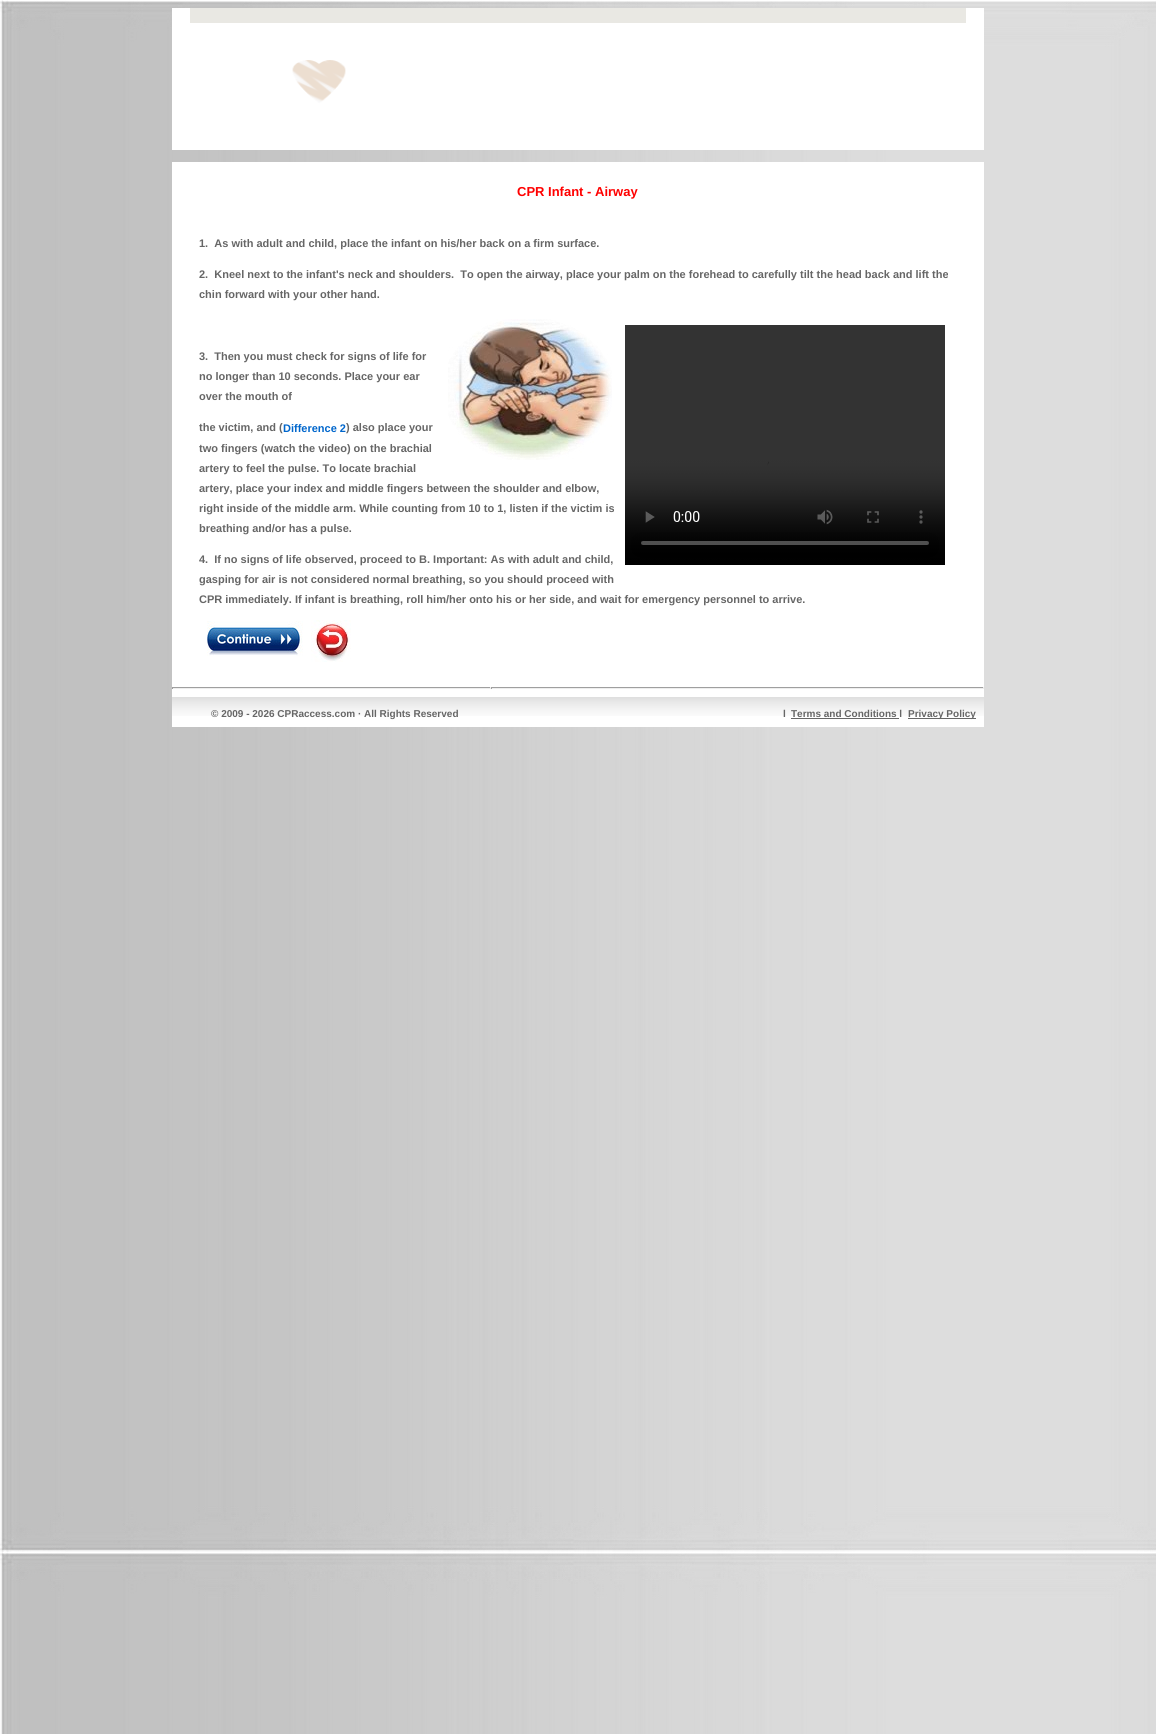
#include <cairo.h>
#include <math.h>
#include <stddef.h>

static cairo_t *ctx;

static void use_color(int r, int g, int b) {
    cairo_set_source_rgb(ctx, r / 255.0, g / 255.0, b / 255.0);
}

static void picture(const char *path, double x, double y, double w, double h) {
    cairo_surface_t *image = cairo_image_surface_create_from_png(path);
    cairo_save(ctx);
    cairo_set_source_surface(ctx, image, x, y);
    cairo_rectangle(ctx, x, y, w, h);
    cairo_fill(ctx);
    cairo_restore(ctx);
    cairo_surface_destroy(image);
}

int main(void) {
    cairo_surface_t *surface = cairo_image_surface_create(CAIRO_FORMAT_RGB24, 1156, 1734);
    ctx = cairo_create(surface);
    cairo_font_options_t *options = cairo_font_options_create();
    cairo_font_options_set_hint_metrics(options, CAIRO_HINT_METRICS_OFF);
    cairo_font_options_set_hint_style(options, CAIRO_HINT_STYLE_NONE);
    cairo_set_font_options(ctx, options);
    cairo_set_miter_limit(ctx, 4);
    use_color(255, 255, 255);
    cairo_paint(ctx);
    picture("img1.png", 0, 0, 1156, 1734);
    picture("img2.png", 172, 8, 812, 142);
    use_color(255, 255, 255);
    cairo_rectangle(ctx, 172, 162, 812, 565);
    cairo_fill(ctx);
    cairo_select_font_face(ctx, "Liberation Sans", CAIRO_FONT_SLANT_NORMAL, CAIRO_FONT_WEIGHT_BOLD);
    cairo_set_font_size(ctx, 13);
    use_color(255, 0, 0);
    cairo_move_to(ctx, 517, 196);
    cairo_show_text(ctx, "CPR Infant - Airway");
    cairo_set_font_size(ctx, 11);
    use_color(102, 102, 102);
    cairo_move_to(ctx, 199, 247);
    cairo_show_text(ctx, "1.  As with adult and child, place the infant on his/her back on a firm surface.");
    cairo_move_to(ctx, 199, 278);
    cairo_show_text(ctx, "2.  Kneel next to the infant's neck and shoulders.  To open the airway, place your palm on the forehead to carefully tilt the head back and lift the");
    cairo_move_to(ctx, 199, 298);
    cairo_show_text(ctx, "chin forward with your other hand.");
    cairo_move_to(ctx, 199, 360);
    cairo_show_text(ctx, "3.  Then you must check for signs of life for");
    cairo_move_to(ctx, 199, 380);
    cairo_show_text(ctx, "no longer than 10 seconds. Place your ear");
    cairo_move_to(ctx, 199, 400);
    cairo_show_text(ctx, "over the mouth of");
    picture("img3.png", 448, 319, 164, 141);
    picture("img4.png", 625, 325, 320, 240);
    cairo_move_to(ctx, 199, 431);
    cairo_show_text(ctx, "the victim, and (");
    use_color(0, 102, 204);
    cairo_move_to(ctx, 283, 432);
    cairo_show_text(ctx, "Difference 2");
    use_color(102, 102, 102);
    cairo_move_to(ctx, 346, 431);
    cairo_show_text(ctx, ") also place your");
    cairo_move_to(ctx, 199, 452);
    cairo_show_text(ctx, "two fingers (watch the video) on the brachial");
    cairo_move_to(ctx, 199, 472);
    cairo_show_text(ctx, "artery to feel the pulse. To locate brachial");
    cairo_move_to(ctx, 199, 492);
    cairo_show_text(ctx, "artery, place your index and middle fingers between the shoulder and elbow,");
    cairo_move_to(ctx, 199, 512);
    cairo_show_text(ctx, "right inside of the middle arm. While counting from 10 to 1, listen if the victim is");
    cairo_move_to(ctx, 199, 532);
    cairo_show_text(ctx, "breathing and/or has a pulse.");
    cairo_move_to(ctx, 199, 563);
    cairo_show_text(ctx, "4.  If no signs of life observed, proceed to B. Important: As with adult and child,");
    cairo_move_to(ctx, 199, 583);
    cairo_show_text(ctx, "gasping for air is not considered normal breathing, so you should proceed with");
    cairo_move_to(ctx, 199, 603);
    cairo_show_text(ctx, "CPR immediately. If infant is breathing, roll him/her onto his or her side, and wait for emergency personnel to arrive.");
    picture("img5.png", 207, 621, 96, 35);
    picture("img6.png", 311, 620, 40, 42);
    use_color(159, 159, 159);
    cairo_rectangle(ctx, 172, 687, 812, 1);
    cairo_fill(ctx);
    use_color(238, 238, 238);
    cairo_rectangle(ctx, 490, 687, 1, 2);
    cairo_fill(ctx);
    cairo_rectangle(ctx, 172, 688, 319, 1);
    cairo_fill(ctx);
    use_color(159, 159, 159);
    cairo_rectangle(ctx, 172, 687, 1, 2);
    cairo_fill(ctx);
    use_color(238, 238, 238);
    cairo_rectangle(ctx, 983, 687, 1, 2);
    cairo_fill(ctx);
    cairo_rectangle(ctx, 491, 688, 493, 1);
    cairo_fill(ctx);
    use_color(159, 159, 159);
    cairo_rectangle(ctx, 491, 687, 1, 2);
    cairo_fill(ctx);
    picture("img7.png", 172, 697, 319, 19);
    cairo_set_font_size(ctx, 10);
    use_color(102, 102, 102);
    cairo_move_to(ctx, 211, 717);
    cairo_show_text(ctx, "© 2009 - 2026 CPRaccess.com · All Rights Reserved");
    picture("img8.png", 491, 697, 493, 19);
    cairo_move_to(ctx, 783, 717);
    cairo_show_text(ctx, "l");
    cairo_move_to(ctx, 791, 717);
    cairo_show_text(ctx, "Terms and Conditions l");
    cairo_rectangle(ctx, 791, 718, 108, 1);
    cairo_fill(ctx);
    cairo_rectangle(ctx, 908, 718, 68, 1);
    cairo_fill(ctx);
    cairo_move_to(ctx, 908, 717);
    cairo_show_text(ctx, "Privacy Policy");
    cairo_surface_write_to_png(surface, "result.png");
    cairo_font_options_destroy(options);
    cairo_destroy(ctx);
    cairo_surface_destroy(surface);
    return 0;
}
